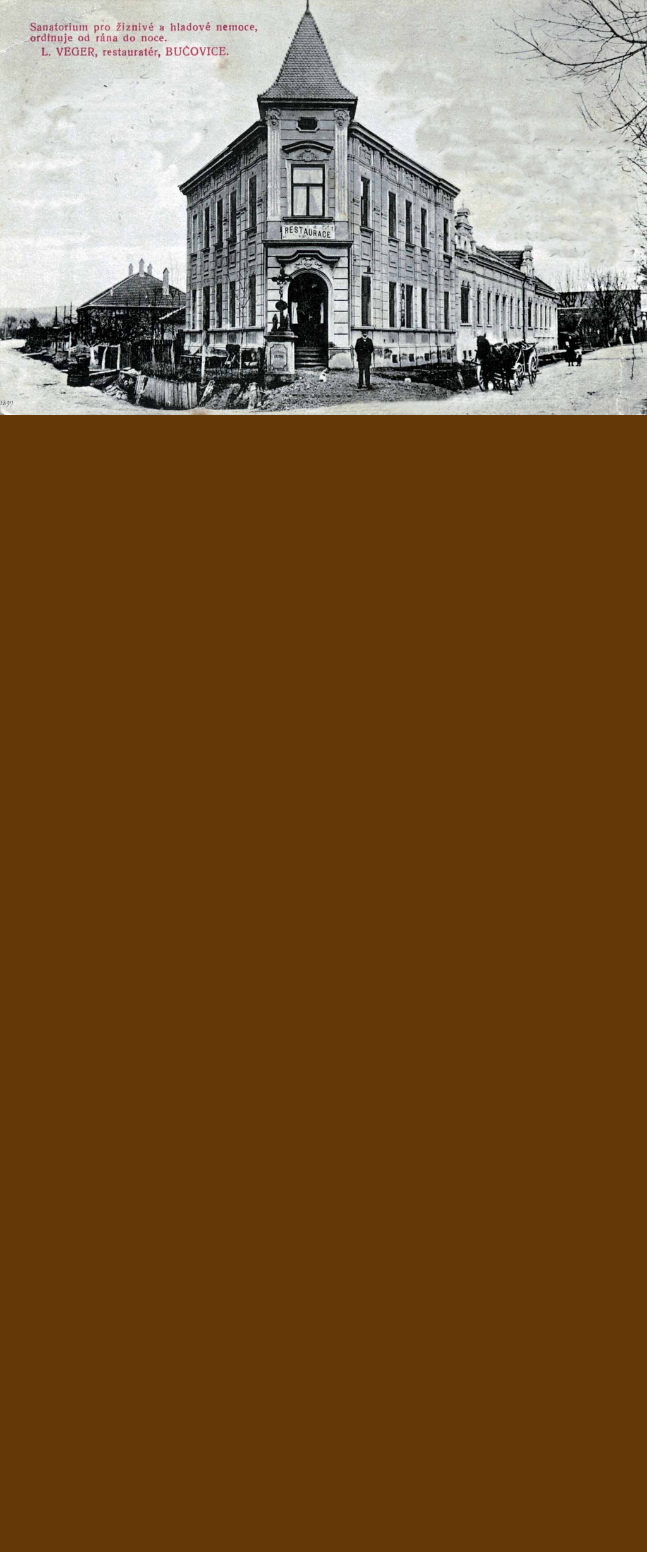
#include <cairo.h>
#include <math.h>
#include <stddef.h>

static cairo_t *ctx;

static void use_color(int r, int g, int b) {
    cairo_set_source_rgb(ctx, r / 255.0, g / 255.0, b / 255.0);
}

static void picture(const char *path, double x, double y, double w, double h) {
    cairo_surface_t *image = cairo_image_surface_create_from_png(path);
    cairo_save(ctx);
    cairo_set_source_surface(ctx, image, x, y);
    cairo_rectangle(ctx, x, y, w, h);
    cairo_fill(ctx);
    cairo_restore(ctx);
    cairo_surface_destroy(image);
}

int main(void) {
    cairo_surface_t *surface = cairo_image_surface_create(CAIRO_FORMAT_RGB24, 647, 1552);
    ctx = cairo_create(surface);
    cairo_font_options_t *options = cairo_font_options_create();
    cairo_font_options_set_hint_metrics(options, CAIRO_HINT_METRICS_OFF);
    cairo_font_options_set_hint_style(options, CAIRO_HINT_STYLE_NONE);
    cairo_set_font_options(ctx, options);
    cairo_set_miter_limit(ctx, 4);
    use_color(100, 56, 7);
    cairo_paint(ctx);
    picture("img1.png", 0, 0, 647, 415);
    cairo_surface_write_to_png(surface, "result.png");
    cairo_font_options_destroy(options);
    cairo_destroy(ctx);
    cairo_surface_destroy(surface);
    return 0;
}
